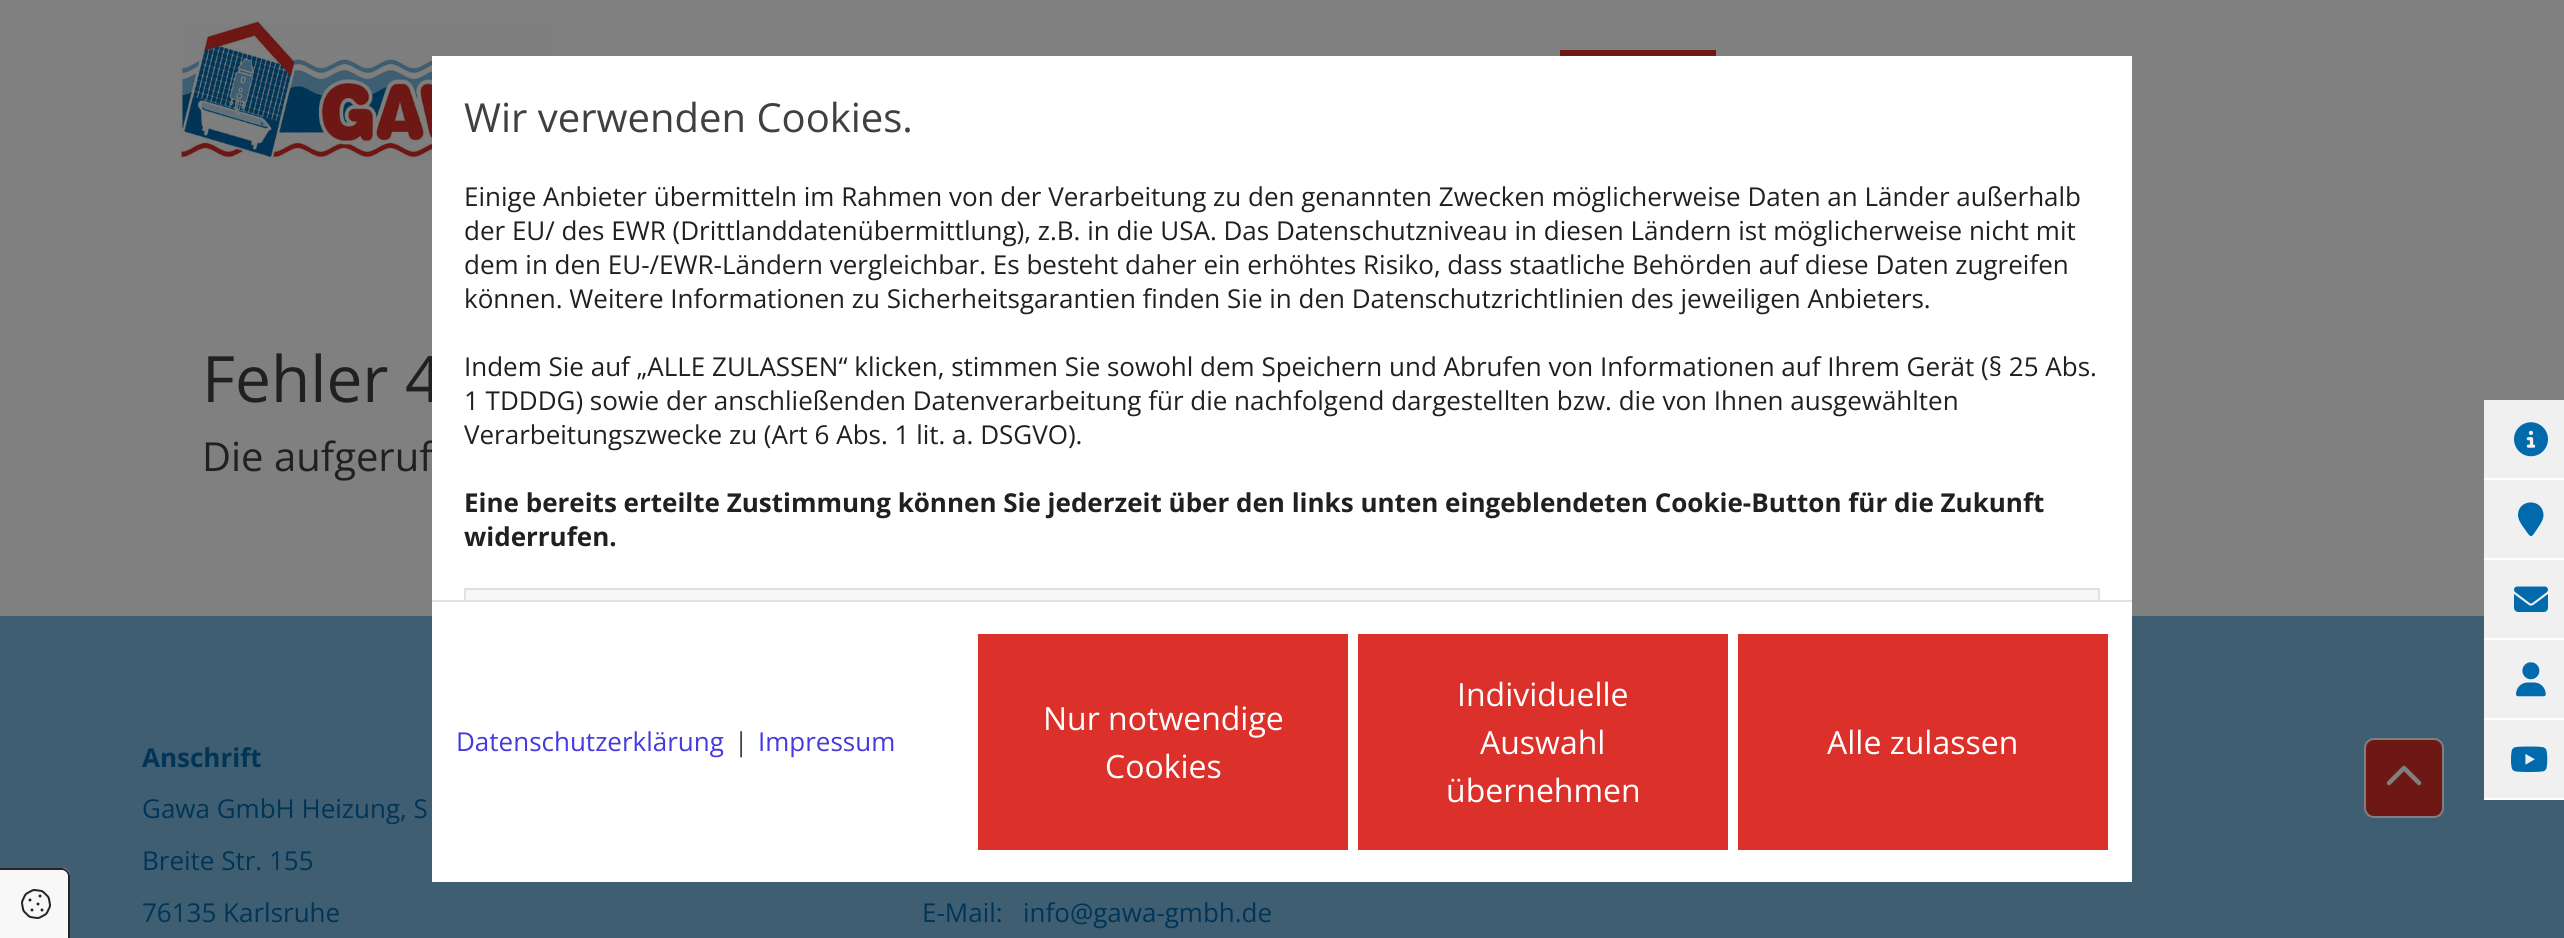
#include <cairo.h>
#include <math.h>
#include <stddef.h>

static cairo_t *ctx;

static void use_color(int r, int g, int b) {
    cairo_set_source_rgb(ctx, r / 255.0, g / 255.0, b / 255.0);
}

static void round_rect(double x, double y, double w, double h, double r) {
    cairo_new_sub_path(ctx);
    cairo_arc(ctx, x + w - r, y + h - r, r, 0, M_PI / 2);
    cairo_arc(ctx, x + r, y + h - r, r, M_PI / 2, M_PI);
    cairo_arc(ctx, x + r, y + r, r, M_PI, 1.5 * M_PI);
    cairo_arc(ctx, x + w - r, y + r, r, 1.5 * M_PI, 2 * M_PI);
    cairo_close_path(ctx);
}

static void picture(const char *path, double x, double y, double w, double h) {
    cairo_surface_t *image = cairo_image_surface_create_from_png(path);
    cairo_save(ctx);
    cairo_set_source_surface(ctx, image, x, y);
    cairo_rectangle(ctx, x, y, w, h);
    cairo_fill(ctx);
    cairo_restore(ctx);
    cairo_surface_destroy(image);
}

int main(void) {
    cairo_surface_t *surface = cairo_image_surface_create(CAIRO_FORMAT_RGB24, 2564, 938);
    ctx = cairo_create(surface);
    cairo_font_options_t *options = cairo_font_options_create();
    cairo_font_options_set_hint_metrics(options, CAIRO_HINT_METRICS_OFF);
    cairo_font_options_set_hint_style(options, CAIRO_HINT_STYLE_NONE);
    cairo_set_font_options(ctx, options);
    cairo_set_miter_limit(ctx, 4);
    use_color(128, 128, 128);
    cairo_paint(ctx);
    picture("img1.png", 180, 20, 372, 140);
    cairo_select_font_face(ctx, "Open Sans", CAIRO_FONT_SLANT_NORMAL, CAIRO_FONT_WEIGHT_NORMAL);
    cairo_set_font_size(ctx, 64);
    use_color(32, 32, 32);
    cairo_move_to(ctx, 202, 402);
    cairo_show_text(ctx, "Fehler 4");
    cairo_set_font_size(ctx, 40);
    cairo_move_to(ctx, 202, 471);
    cairo_show_text(ctx, "Die aufgeruf");
    use_color(64, 94, 113);
    cairo_rectangle(ctx, 0, 616, 2564, 322);
    cairo_fill(ctx);
    use_color(255, 255, 255);
    cairo_rectangle(ctx, 432, 56, 1700, 826);
    cairo_fill(ctx);
    use_color(64, 64, 64);
    cairo_move_to(ctx, 464, 132);
    cairo_show_text(ctx, "Wir verwenden Cookies.");
    cairo_set_font_size(ctx, 26);
    use_color(32, 32, 32);
    cairo_move_to(ctx, 464, 206);
    cairo_show_text(ctx, "Einige Anbieter übermitteln im Rahmen von der Verarbeitung zu den genannten Zwecken möglicherweise Daten an Länder außerhalb");
    cairo_move_to(ctx, 464, 240);
    cairo_show_text(ctx, "der EU/ des EWR (Drittlanddatenübermittlung), z.B. in die USA. Das Datenschutzniveau in diesen Ländern ist möglicherweise nicht mit");
    cairo_move_to(ctx, 464, 274);
    cairo_show_text(ctx, "dem in den EU-/EWR-Ländern vergleichbar. Es besteht daher ein erhöhtes Risiko, dass staatliche Behörden auf diese Daten zugreifen");
    cairo_move_to(ctx, 464, 308);
    cairo_show_text(ctx, "können. Weitere Informationen zu Sicherheitsgarantien finden Sie in den Datenschutzrichtlinien des jeweiligen Anbieters.");
    cairo_move_to(ctx, 464, 376);
    cairo_show_text(ctx, "Indem Sie auf „ALLE ZULASSEN“ klicken, stimmen Sie sowohl dem Speichern und Abrufen von Informationen auf Ihrem Gerät (§ 25 Abs.");
    cairo_move_to(ctx, 464, 410);
    cairo_show_text(ctx, "1 TDDDG) sowie der anschließenden Datenverarbeitung für die nachfolgend dargestellten bzw. die von Ihnen ausgewählten");
    cairo_move_to(ctx, 464, 444);
    cairo_show_text(ctx, "Verarbeitungszwecke zu (Art 6 Abs. 1 lit. a. DSGVO).");
    cairo_select_font_face(ctx, "Open Sans", CAIRO_FONT_SLANT_NORMAL, CAIRO_FONT_WEIGHT_BOLD);
    cairo_move_to(ctx, 464, 512);
    cairo_show_text(ctx, "Eine bereits erteilte Zustimmung können Sie jederzeit über den links unten eingeblendeten Cookie-Button für die Zukunft");
    cairo_move_to(ctx, 464, 546);
    cairo_show_text(ctx, "widerrufen.");
    use_color(223, 223, 223);
    cairo_new_path(ctx);
    cairo_move_to(ctx, 464, 588);
    cairo_line_to(ctx, 2100, 588);
    cairo_line_to(ctx, 2098, 590);
    cairo_line_to(ctx, 466, 590);
    cairo_close_path(ctx);
    cairo_fill(ctx);
    cairo_save(ctx);
    cairo_rectangle(ctx, 432, 180, 1700, 420);
    cairo_clip(ctx);
    cairo_set_source_rgba(ctx, 0, 0, 0, 0.12);
    cairo_new_path(ctx);
    cairo_move_to(ctx, 2100, 588);
    cairo_line_to(ctx, 2100, 666);
    cairo_line_to(ctx, 2098, 666);
    cairo_line_to(ctx, 2098, 590);
    cairo_close_path(ctx);
    cairo_fill(ctx);
    cairo_new_path(ctx);
    cairo_move_to(ctx, 464, 666);
    cairo_line_to(ctx, 464, 588);
    cairo_line_to(ctx, 466, 590);
    cairo_line_to(ctx, 466, 666);
    cairo_close_path(ctx);
    cairo_fill(ctx);
    cairo_restore(ctx);
    use_color(247, 247, 247);
    cairo_rectangle(ctx, 466, 590, 1632, 10);
    cairo_fill(ctx);
    use_color(222, 226, 230);
    cairo_rectangle(ctx, 432, 600, 1700, 2);
    cairo_fill(ctx);
    cairo_select_font_face(ctx, "Open Sans", CAIRO_FONT_SLANT_NORMAL, CAIRO_FONT_WEIGHT_NORMAL);
    use_color(68, 58, 223);
    cairo_move_to(ctx, 456, 751);
    cairo_show_text(ctx, "Datenschutzerklärung");
    use_color(64, 64, 64);
    cairo_move_to(ctx, 734, 751);
    cairo_show_text(ctx, "|");
    use_color(68, 58, 223);
    cairo_move_to(ctx, 758, 751);
    cairo_show_text(ctx, "Impressum");
    use_color(220, 48, 43);
    cairo_rectangle(ctx, 978, 634, 370, 216);
    cairo_fill(ctx);
    cairo_set_font_size(ctx, 32);
    use_color(255, 255, 255);
    cairo_move_to(ctx, 1043, 730);
    cairo_show_text(ctx, "Nur notwendige");
    cairo_move_to(ctx, 1105, 778);
    cairo_show_text(ctx, "Cookies");
    use_color(220, 48, 43);
    cairo_rectangle(ctx, 1358, 634, 370, 216);
    cairo_fill(ctx);
    use_color(255, 255, 255);
    cairo_move_to(ctx, 1457, 706);
    cairo_show_text(ctx, "Individuelle");
    cairo_move_to(ctx, 1480, 754);
    cairo_show_text(ctx, "Auswahl");
    cairo_move_to(ctx, 1446, 802);
    cairo_show_text(ctx, "übernehmen");
    use_color(220, 48, 43);
    cairo_rectangle(ctx, 1738, 634, 370, 216);
    cairo_fill(ctx);
    use_color(255, 255, 255);
    cairo_move_to(ctx, 1827, 754);
    cairo_show_text(ctx, "Alle zulassen");
    use_color(110, 24, 22);
    cairo_rectangle(ctx, 1560, 50, 156, 6);
    cairo_fill(ctx);
    use_color(240, 240, 240);
    cairo_rectangle(ctx, 2484, 400, 80, 78);
    cairo_fill(ctx);
    use_color(255, 255, 255);
    cairo_rectangle(ctx, 2484, 478, 80, 2);
    cairo_fill(ctx);
    picture("img2.png", 2514, 422, 34, 35);
    use_color(240, 240, 240);
    cairo_rectangle(ctx, 2484, 480, 80, 78);
    cairo_fill(ctx);
    use_color(255, 255, 255);
    cairo_rectangle(ctx, 2484, 558, 80, 2);
    cairo_fill(ctx);
    use_color(0, 106, 173);
    cairo_new_path(ctx);
    cairo_move_to(ctx, 2543.5, 515);
    cairo_curve_to(ctx, 2543.5, 520, 2540, 524.5, 2537.5, 528.5);
    cairo_curve_to(ctx, 2531, 538, 2531.5, 539, 2525, 529.5);
    cairo_curve_to(ctx, 2522, 525.5, 2518, 520, 2518, 515);
    cairo_curve_to(ctx, 2518, 498.5, 2543, 498, 2543.5, 515);
    cairo_close_path(ctx);
    cairo_fill(ctx);
    use_color(240, 240, 240);
    cairo_rectangle(ctx, 2484, 560, 80, 78);
    cairo_fill(ctx);
    use_color(255, 255, 255);
    cairo_rectangle(ctx, 2484, 638, 80, 2);
    cairo_fill(ctx);
    picture("img3.png", 2514, 586, 34, 26);
    use_color(240, 240, 240);
    cairo_rectangle(ctx, 2484, 640, 80, 78);
    cairo_fill(ctx);
    use_color(255, 255, 255);
    cairo_rectangle(ctx, 2484, 718, 80, 2);
    cairo_fill(ctx);
    picture("img4.png", 2516, 662, 30, 35);
    use_color(240, 240, 240);
    cairo_rectangle(ctx, 2484, 720, 80, 78);
    cairo_fill(ctx);
    use_color(255, 255, 255);
    cairo_rectangle(ctx, 2484, 798, 80, 2);
    cairo_fill(ctx);
    picture("img5.png", 2511, 746, 37, 26);
    cairo_select_font_face(ctx, "Open Sans", CAIRO_FONT_SLANT_NORMAL, CAIRO_FONT_WEIGHT_BOLD);
    cairo_set_font_size(ctx, 26);
    use_color(0, 53, 87);
    cairo_move_to(ctx, 142, 767);
    cairo_show_text(ctx, "Anschrift");
    cairo_select_font_face(ctx, "Open Sans", CAIRO_FONT_SLANT_NORMAL, CAIRO_FONT_WEIGHT_NORMAL);
    cairo_move_to(ctx, 142, 818);
    cairo_show_text(ctx, "Gawa GmbH Heizung, S");
    cairo_move_to(ctx, 142, 870);
    cairo_show_text(ctx, "Breite Str. 155");
    cairo_move_to(ctx, 142, 922);
    cairo_show_text(ctx, "76135 Karlsruhe");
    cairo_move_to(ctx, 922, 922);
    cairo_show_text(ctx, "E-Mail:");
    cairo_move_to(ctx, 1023, 922);
    cairo_show_text(ctx, "info@gawa-gmbh.de");
    use_color(110, 24, 22);
    round_rect(2365, 739, 78, 78, 9);
    cairo_fill_preserve(ctx);
    use_color(128, 128, 128);
    cairo_stroke(ctx);
    picture("img6.png", 2386, 765, 36, 21);
    use_color(248, 248, 248);
    cairo_new_path(ctx);
    cairo_move_to(ctx, 0, 868);
    cairo_line_to(ctx, 62, 868);
    cairo_curve_to(ctx, 66.5, 868, 70, 871.5, 70, 876);
    cairo_line_to(ctx, 70, 938);
    cairo_line_to(ctx, 0, 938);
    cairo_close_path(ctx);
    cairo_fill(ctx);
    use_color(37, 37, 37);
    cairo_set_fill_rule(ctx, CAIRO_FILL_RULE_EVEN_ODD);
    cairo_new_path(ctx);
    cairo_move_to(ctx, 0, 868);
    cairo_line_to(ctx, 62, 868);
    cairo_curve_to(ctx, 66, 868, 70, 872, 70, 876);
    cairo_line_to(ctx, 70, 938);
    cairo_line_to(ctx, 0, 938);
    cairo_close_path(ctx);
    cairo_move_to(ctx, 0, 870);
    cairo_line_to(ctx, 62, 870);
    cairo_curve_to(ctx, 65, 870, 68, 873, 68, 876);
    cairo_line_to(ctx, 68, 938);
    cairo_line_to(ctx, 0, 938);
    cairo_close_path(ctx);
    cairo_fill(ctx);
    picture("img7.png", 21, 889, 30, 30);
    cairo_surface_write_to_png(surface, "result.png");
    cairo_font_options_destroy(options);
    cairo_destroy(ctx);
    cairo_surface_destroy(surface);
    return 0;
}
